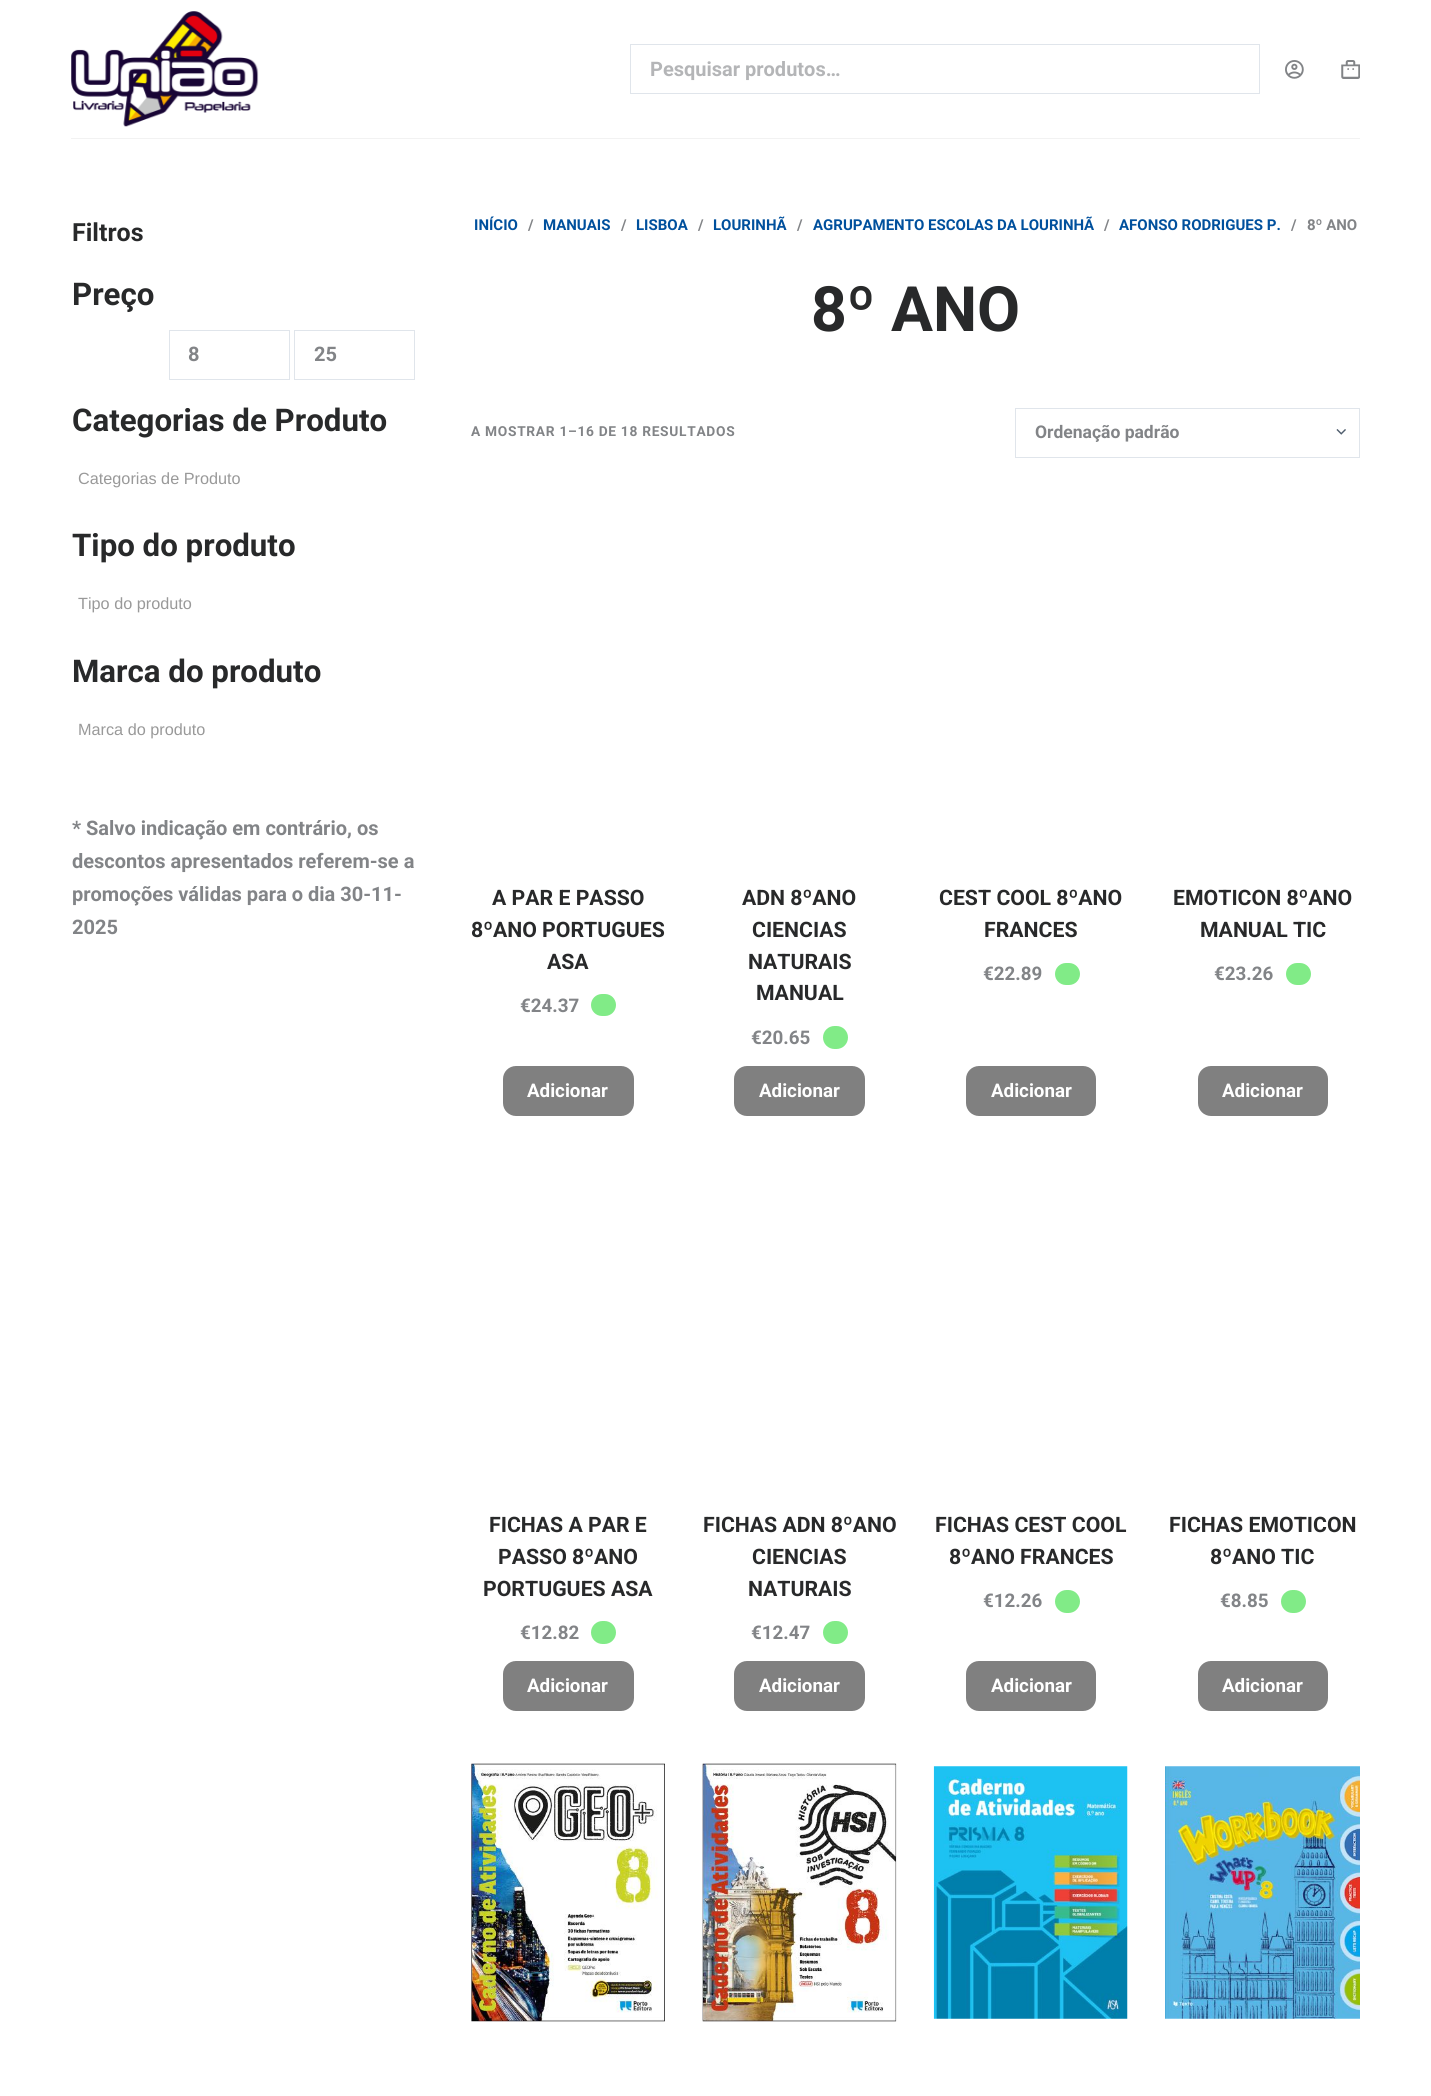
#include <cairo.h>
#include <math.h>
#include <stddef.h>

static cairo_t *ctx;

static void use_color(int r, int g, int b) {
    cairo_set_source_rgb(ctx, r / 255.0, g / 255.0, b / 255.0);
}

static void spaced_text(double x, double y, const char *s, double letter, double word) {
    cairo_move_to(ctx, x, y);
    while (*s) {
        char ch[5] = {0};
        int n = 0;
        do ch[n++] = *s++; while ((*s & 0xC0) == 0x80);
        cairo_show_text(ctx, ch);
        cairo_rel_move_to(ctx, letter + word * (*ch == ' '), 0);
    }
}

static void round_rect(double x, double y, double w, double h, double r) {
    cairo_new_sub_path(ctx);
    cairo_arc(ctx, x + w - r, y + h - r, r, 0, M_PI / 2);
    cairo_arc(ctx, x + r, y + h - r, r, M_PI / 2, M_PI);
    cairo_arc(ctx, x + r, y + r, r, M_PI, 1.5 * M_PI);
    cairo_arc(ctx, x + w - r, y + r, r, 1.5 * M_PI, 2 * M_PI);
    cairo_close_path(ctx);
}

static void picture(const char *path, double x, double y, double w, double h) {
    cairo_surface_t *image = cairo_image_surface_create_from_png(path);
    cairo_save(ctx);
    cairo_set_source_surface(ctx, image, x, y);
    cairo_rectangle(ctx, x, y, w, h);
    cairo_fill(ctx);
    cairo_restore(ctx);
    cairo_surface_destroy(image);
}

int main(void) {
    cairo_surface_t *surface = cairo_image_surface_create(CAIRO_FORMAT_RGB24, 1431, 2096);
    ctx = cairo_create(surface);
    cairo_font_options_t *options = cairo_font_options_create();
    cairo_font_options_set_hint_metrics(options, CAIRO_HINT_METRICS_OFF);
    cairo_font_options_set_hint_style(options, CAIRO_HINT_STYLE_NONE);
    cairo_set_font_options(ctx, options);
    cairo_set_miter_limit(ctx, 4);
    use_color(255, 255, 255);
    cairo_paint(ctx);
    use_color(242, 242, 242);
    cairo_rectangle(ctx, 71, 138, 1289, 1);
    cairo_fill(ctx);
    picture("img1.png", 71, 11, 188, 116);
    cairo_rectangle(ctx, 630.5, 44.5, 629, 49);
    use_color(224, 229, 235);
    cairo_set_line_width(ctx, 1);
    cairo_stroke(ctx);
    cairo_select_font_face(ctx, "Roboto", CAIRO_FONT_SLANT_NORMAL, CAIRO_FONT_WEIGHT_BOLD);
    cairo_set_font_size(ctx, 20);
    use_color(180, 181, 183);
    cairo_move_to(ctx, 650, 76);
    cairo_show_text(ctx, "Pesquisar produtos…");
    picture("img2.png", 1285, 60, 19, 19);
    picture("img3.png", 1341, 60, 19, 19);
    cairo_set_font_size(ctx, 25);
    use_color(40, 41, 42);
    cairo_move_to(ctx, 72, 241);
    cairo_show_text(ctx, "Filtros");
    cairo_set_font_size(ctx, 31.25);
    cairo_move_to(ctx, 72, 305);
    cairo_show_text(ctx, "Preço");
    cairo_rectangle(ctx, 169.5, 330.5, 120, 49);
    use_color(224, 229, 235);
    cairo_stroke(ctx);
    cairo_set_font_size(ctx, 20);
    use_color(130, 132, 135);
    cairo_move_to(ctx, 188, 361);
    cairo_show_text(ctx, "8");
    cairo_rectangle(ctx, 294.5, 330.5, 120, 49);
    use_color(224, 229, 235);
    cairo_stroke(ctx);
    use_color(130, 132, 135);
    cairo_move_to(ctx, 314, 361);
    cairo_show_text(ctx, "25");
    cairo_set_font_size(ctx, 31.25);
    use_color(40, 41, 42);
    cairo_move_to(ctx, 72, 431);
    cairo_show_text(ctx, "Categorias de Produto");
    cairo_select_font_face(ctx, "Liberation Sans", CAIRO_FONT_SLANT_NORMAL, CAIRO_FONT_WEIGHT_NORMAL);
    cairo_set_font_size(ctx, 16.25);
    use_color(153, 153, 153);
    cairo_move_to(ctx, 78, 484);
    cairo_show_text(ctx, "Categorias de Produto");
    cairo_select_font_face(ctx, "Roboto", CAIRO_FONT_SLANT_NORMAL, CAIRO_FONT_WEIGHT_BOLD);
    cairo_set_font_size(ctx, 31.25);
    use_color(40, 41, 42);
    cairo_move_to(ctx, 72, 556);
    cairo_show_text(ctx, "Tipo do produto");
    cairo_select_font_face(ctx, "Liberation Sans", CAIRO_FONT_SLANT_NORMAL, CAIRO_FONT_WEIGHT_NORMAL);
    cairo_set_font_size(ctx, 16.25);
    use_color(153, 153, 153);
    cairo_move_to(ctx, 78, 609);
    cairo_show_text(ctx, "Tipo do produto");
    cairo_select_font_face(ctx, "Roboto", CAIRO_FONT_SLANT_NORMAL, CAIRO_FONT_WEIGHT_BOLD);
    cairo_set_font_size(ctx, 31.25);
    use_color(40, 41, 42);
    cairo_move_to(ctx, 72, 682);
    cairo_show_text(ctx, "Marca do produto");
    cairo_select_font_face(ctx, "Liberation Sans", CAIRO_FONT_SLANT_NORMAL, CAIRO_FONT_WEIGHT_NORMAL);
    cairo_set_font_size(ctx, 16.25);
    use_color(153, 153, 153);
    cairo_move_to(ctx, 78, 735);
    cairo_show_text(ctx, "Marca do produto");
    cairo_select_font_face(ctx, "Roboto", CAIRO_FONT_SLANT_NORMAL, CAIRO_FONT_WEIGHT_BOLD);
    cairo_set_font_size(ctx, 20);
    use_color(130, 132, 135);
    cairo_move_to(ctx, 72, 835);
    cairo_show_text(ctx, "* Salvo indicação em contrário, os");
    cairo_move_to(ctx, 72, 868);
    cairo_show_text(ctx, "descontos apresentados referem-se a");
    cairo_move_to(ctx, 72, 901);
    cairo_show_text(ctx, "promoções válidas para o dia 30-11-");
    cairo_move_to(ctx, 72, 934);
    cairo_show_text(ctx, "2025");
    cairo_set_font_size(ctx, 15);
    use_color(0, 80, 157);
    cairo_move_to(ctx, 474, 230);
    cairo_show_text(ctx, "INÍCIO");
    use_color(130, 132, 135);
    cairo_move_to(ctx, 528, 230);
    cairo_show_text(ctx, "/");
    use_color(0, 80, 157);
    cairo_move_to(ctx, 543, 230);
    cairo_show_text(ctx, "MANUAIS");
    use_color(130, 132, 135);
    cairo_move_to(ctx, 621, 230);
    cairo_show_text(ctx, "/");
    use_color(0, 80, 157);
    cairo_move_to(ctx, 636, 230);
    cairo_show_text(ctx, "LISBOA");
    use_color(130, 132, 135);
    cairo_move_to(ctx, 698, 230);
    cairo_show_text(ctx, "/");
    use_color(0, 80, 157);
    cairo_move_to(ctx, 713, 230);
    cairo_show_text(ctx, "LOURINHÃ");
    use_color(130, 132, 135);
    cairo_move_to(ctx, 797, 230);
    cairo_show_text(ctx, "/");
    use_color(0, 80, 157);
    cairo_move_to(ctx, 813, 230);
    cairo_show_text(ctx, "AGRUPAMENTO ESCOLAS DA LOURINHÃ");
    use_color(130, 132, 135);
    cairo_move_to(ctx, 1104, 230);
    cairo_show_text(ctx, "/");
    use_color(0, 80, 157);
    cairo_move_to(ctx, 1119, 230);
    cairo_show_text(ctx, "AFONSO RODRIGUES P.");
    use_color(130, 132, 135);
    cairo_move_to(ctx, 1291, 230);
    cairo_show_text(ctx, "/");
    cairo_move_to(ctx, 1307, 230);
    cairo_show_text(ctx, "8º ANO");
    cairo_set_font_size(ctx, 62.5);
    use_color(40, 41, 42);
    cairo_move_to(ctx, 811, 331);
    cairo_show_text(ctx, "8º ANO");
    cairo_set_font_size(ctx, 13.75);
    use_color(130, 132, 135);
    spaced_text(471, 436, "A MOSTRAR 1–16 DE 18 RESULTADOS", 0.7, 0);
    picture("img4.png", 1336, 429, 10, 6);
    cairo_rectangle(ctx, 1015.5, 408.5, 344, 49);
    use_color(224, 229, 235);
    cairo_stroke(ctx);
    cairo_set_font_size(ctx, 17.5);
    use_color(130, 132, 135);
    cairo_move_to(ctx, 1035, 438);
    cairo_show_text(ctx, "Ordenação padrão");
    cairo_set_font_size(ctx, 21.25);
    use_color(40, 41, 42);
    cairo_move_to(ctx, 492, 905);
    cairo_show_text(ctx, "A PAR E PASSO");
    cairo_move_to(ctx, 471, 937);
    cairo_show_text(ctx, "8ºANO PORTUGUES");
    cairo_move_to(ctx, 547, 969);
    cairo_show_text(ctx, "ASA");
    cairo_set_font_size(ctx, 18.75);
    use_color(130, 132, 135);
    cairo_move_to(ctx, 520, 1012);
    cairo_show_text(ctx, "€24.37");
    use_color(129, 235, 135);
    round_rect(591, 994, 25, 22, 11);
    cairo_fill(ctx);
    use_color(128, 128, 128);
    round_rect(503, 1066, 131, 50, 13);
    cairo_fill(ctx);
    use_color(255, 255, 255);
    cairo_move_to(ctx, 527, 1097);
    cairo_show_text(ctx, "Adicionar");
    cairo_set_font_size(ctx, 21.25);
    use_color(40, 41, 42);
    cairo_move_to(ctx, 742, 905);
    cairo_show_text(ctx, "ADN 8ºANO");
    cairo_move_to(ctx, 752, 937);
    cairo_show_text(ctx, "CIENCIAS");
    cairo_move_to(ctx, 748, 969);
    cairo_show_text(ctx, "NATURAIS");
    cairo_move_to(ctx, 756, 1000);
    cairo_show_text(ctx, "MANUAL");
    cairo_set_font_size(ctx, 18.75);
    use_color(130, 132, 135);
    cairo_move_to(ctx, 751, 1044);
    cairo_show_text(ctx, "€20.65");
    use_color(129, 235, 135);
    round_rect(823, 1026, 25, 23, 11.5);
    cairo_fill(ctx);
    use_color(128, 128, 128);
    round_rect(734, 1066, 131, 50, 13);
    cairo_fill(ctx);
    use_color(255, 255, 255);
    cairo_move_to(ctx, 759, 1097);
    cairo_show_text(ctx, "Adicionar");
    cairo_set_font_size(ctx, 21.25);
    use_color(40, 41, 42);
    cairo_move_to(ctx, 939, 905);
    cairo_show_text(ctx, "CEST COOL 8ºANO");
    cairo_move_to(ctx, 984, 937);
    cairo_show_text(ctx, "FRANCES");
    cairo_set_font_size(ctx, 18.75);
    use_color(130, 132, 135);
    cairo_move_to(ctx, 983, 980);
    cairo_show_text(ctx, "€22.89");
    use_color(129, 235, 135);
    round_rect(1055, 963, 25, 22, 11);
    cairo_fill(ctx);
    use_color(128, 128, 128);
    round_rect(966, 1066, 130, 50, 13);
    cairo_fill(ctx);
    use_color(255, 255, 255);
    cairo_move_to(ctx, 991, 1097);
    cairo_show_text(ctx, "Adicionar");
    cairo_set_font_size(ctx, 21.25);
    use_color(40, 41, 42);
    cairo_move_to(ctx, 1173, 905);
    cairo_show_text(ctx, "EMOTICON 8ºANO");
    cairo_move_to(ctx, 1200, 937);
    cairo_show_text(ctx, "MANUAL TIC");
    cairo_set_font_size(ctx, 18.75);
    use_color(130, 132, 135);
    cairo_move_to(ctx, 1214, 980);
    cairo_show_text(ctx, "€23.26");
    use_color(129, 235, 135);
    round_rect(1286, 963, 25, 22, 11);
    cairo_fill(ctx);
    use_color(128, 128, 128);
    round_rect(1198, 1066, 130, 50, 13);
    cairo_fill(ctx);
    use_color(255, 255, 255);
    cairo_move_to(ctx, 1222, 1097);
    cairo_show_text(ctx, "Adicionar");
    cairo_set_font_size(ctx, 21.25);
    use_color(40, 41, 42);
    cairo_move_to(ctx, 489, 1532);
    cairo_show_text(ctx, "FICHAS A PAR E");
    cairo_move_to(ctx, 498, 1564);
    cairo_show_text(ctx, "PASSO 8ºANO");
    cairo_move_to(ctx, 483, 1596);
    cairo_show_text(ctx, "PORTUGUES ASA");
    cairo_set_font_size(ctx, 18.75);
    use_color(130, 132, 135);
    cairo_move_to(ctx, 520, 1639);
    cairo_show_text(ctx, "€12.82");
    use_color(129, 235, 135);
    round_rect(591, 1621, 25, 23, 11.5);
    cairo_fill(ctx);
    use_color(128, 128, 128);
    round_rect(503, 1661, 131, 50, 13);
    cairo_fill(ctx);
    use_color(255, 255, 255);
    cairo_move_to(ctx, 527, 1692);
    cairo_show_text(ctx, "Adicionar");
    cairo_set_font_size(ctx, 21.25);
    use_color(40, 41, 42);
    cairo_move_to(ctx, 703, 1532);
    cairo_show_text(ctx, "FICHAS ADN 8ºANO");
    cairo_move_to(ctx, 752, 1564);
    cairo_show_text(ctx, "CIENCIAS");
    cairo_move_to(ctx, 748, 1596);
    cairo_show_text(ctx, "NATURAIS");
    cairo_set_font_size(ctx, 18.75);
    use_color(130, 132, 135);
    cairo_move_to(ctx, 751, 1639);
    cairo_show_text(ctx, "€12.47");
    use_color(129, 235, 135);
    round_rect(823, 1621, 25, 23, 11.5);
    cairo_fill(ctx);
    use_color(128, 128, 128);
    round_rect(734, 1661, 131, 50, 13);
    cairo_fill(ctx);
    use_color(255, 255, 255);
    cairo_move_to(ctx, 759, 1692);
    cairo_show_text(ctx, "Adicionar");
    cairo_set_font_size(ctx, 21.25);
    use_color(40, 41, 42);
    cairo_move_to(ctx, 935, 1532);
    cairo_show_text(ctx, "FICHAS CEST COOL");
    cairo_move_to(ctx, 949, 1564);
    cairo_show_text(ctx, "8ºANO FRANCES");
    cairo_set_font_size(ctx, 18.75);
    use_color(130, 132, 135);
    cairo_move_to(ctx, 983, 1607);
    cairo_show_text(ctx, "€12.26");
    use_color(129, 235, 135);
    round_rect(1055, 1590, 25, 23, 11.5);
    cairo_fill(ctx);
    use_color(128, 128, 128);
    round_rect(966, 1661, 130, 50, 13);
    cairo_fill(ctx);
    use_color(255, 255, 255);
    cairo_move_to(ctx, 991, 1692);
    cairo_show_text(ctx, "Adicionar");
    cairo_set_font_size(ctx, 21.25);
    use_color(40, 41, 42);
    cairo_move_to(ctx, 1169, 1532);
    cairo_show_text(ctx, "FICHAS EMOTICON");
    cairo_move_to(ctx, 1210, 1564);
    cairo_show_text(ctx, "8ºANO TIC");
    cairo_set_font_size(ctx, 18.75);
    use_color(130, 132, 135);
    cairo_move_to(ctx, 1220, 1607);
    cairo_show_text(ctx, "€8.85");
    use_color(129, 235, 135);
    round_rect(1281, 1590, 25, 23, 11.5);
    cairo_fill(ctx);
    use_color(128, 128, 128);
    round_rect(1198, 1661, 130, 50, 13);
    cairo_fill(ctx);
    use_color(255, 255, 255);
    cairo_move_to(ctx, 1222, 1692);
    cairo_show_text(ctx, "Adicionar");
    picture("img5.png", 471, 1763, 194, 259);
    picture("img6.png", 702, 1763, 195, 259);
    picture("img7.png", 933, 1766, 195, 253);
    picture("img8.png", 1165, 1766, 195, 253);
    cairo_surface_write_to_png(surface, "result.png");
    cairo_font_options_destroy(options);
    cairo_destroy(ctx);
    cairo_surface_destroy(surface);
    return 0;
}
